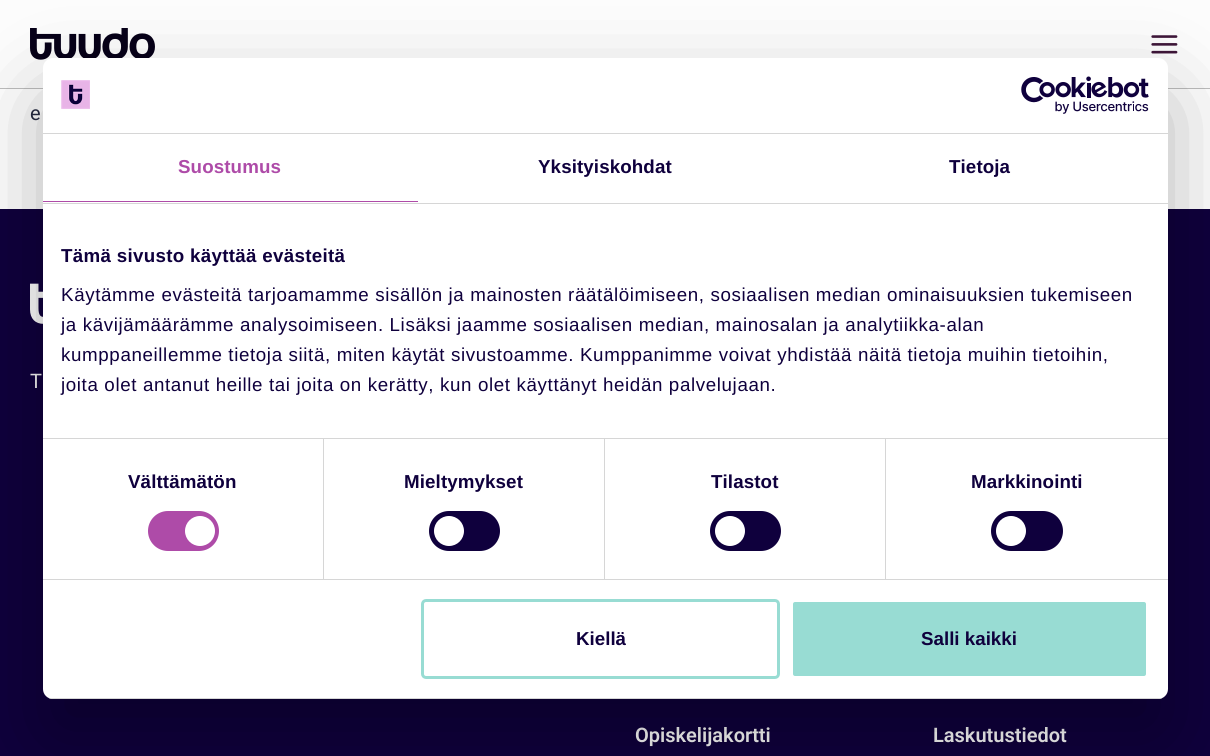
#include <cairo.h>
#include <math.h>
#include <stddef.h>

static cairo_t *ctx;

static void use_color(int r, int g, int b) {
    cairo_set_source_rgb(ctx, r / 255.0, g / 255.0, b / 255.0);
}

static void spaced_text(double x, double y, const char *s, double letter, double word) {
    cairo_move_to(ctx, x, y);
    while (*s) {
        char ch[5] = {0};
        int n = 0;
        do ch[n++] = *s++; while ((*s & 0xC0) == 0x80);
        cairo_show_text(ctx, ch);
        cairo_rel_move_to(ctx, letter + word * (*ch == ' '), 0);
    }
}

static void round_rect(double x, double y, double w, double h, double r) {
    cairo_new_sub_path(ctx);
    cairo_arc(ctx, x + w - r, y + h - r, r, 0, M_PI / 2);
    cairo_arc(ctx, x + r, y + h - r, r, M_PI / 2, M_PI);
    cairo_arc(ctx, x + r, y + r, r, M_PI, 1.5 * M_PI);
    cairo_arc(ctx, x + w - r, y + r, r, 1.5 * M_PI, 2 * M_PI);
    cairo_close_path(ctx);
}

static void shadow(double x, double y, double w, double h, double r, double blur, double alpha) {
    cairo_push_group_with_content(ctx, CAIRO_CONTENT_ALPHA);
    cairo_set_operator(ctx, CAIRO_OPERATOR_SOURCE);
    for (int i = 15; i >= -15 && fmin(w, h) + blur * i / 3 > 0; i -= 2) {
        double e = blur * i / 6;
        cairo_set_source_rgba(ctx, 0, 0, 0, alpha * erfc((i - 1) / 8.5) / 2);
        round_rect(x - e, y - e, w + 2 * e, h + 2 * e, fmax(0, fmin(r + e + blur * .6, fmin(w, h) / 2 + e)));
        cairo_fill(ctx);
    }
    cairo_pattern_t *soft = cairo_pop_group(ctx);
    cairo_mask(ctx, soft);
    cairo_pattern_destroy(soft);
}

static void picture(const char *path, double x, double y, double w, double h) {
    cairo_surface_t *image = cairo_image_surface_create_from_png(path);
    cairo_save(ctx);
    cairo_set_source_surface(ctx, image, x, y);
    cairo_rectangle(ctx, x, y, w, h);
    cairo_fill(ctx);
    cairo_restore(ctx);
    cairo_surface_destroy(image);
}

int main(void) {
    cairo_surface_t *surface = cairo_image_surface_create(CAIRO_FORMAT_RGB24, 1210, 756);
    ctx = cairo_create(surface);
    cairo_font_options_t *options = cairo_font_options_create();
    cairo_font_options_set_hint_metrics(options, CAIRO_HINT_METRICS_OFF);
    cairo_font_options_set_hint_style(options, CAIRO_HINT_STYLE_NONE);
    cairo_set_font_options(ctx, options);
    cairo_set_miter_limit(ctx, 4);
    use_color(255, 255, 255);
    cairo_paint(ctx);
    use_color(252, 252, 252);
    cairo_rectangle(ctx, 0, 0, 1210, 88);
    cairo_fill(ctx);
    use_color(189, 189, 189);
    cairo_rectangle(ctx, 0, 88, 1210, 1);
    cairo_fill(ctx);
    picture("img1.png", 30, 28, 125, 32);
    picture("img2.png", 1151, 35, 27, 19);
    cairo_select_font_face(ctx, "Roboto", CAIRO_FONT_SLANT_NORMAL, CAIRO_FONT_WEIGHT_NORMAL);
    cairo_set_font_size(ctx, 20);
    use_color(37, 42, 65);
    cairo_move_to(ctx, 30, 120);
    cairo_show_text(ctx, "e");
    use_color(15, 0, 61);
    cairo_rectangle(ctx, 0, 209, 1210, 547);
    cairo_fill(ctx);
    picture("img3.png", 30, 283, 13, 41);
    use_color(245, 245, 245);
    cairo_move_to(ctx, 30, 388);
    cairo_show_text(ctx, "T");
    cairo_select_font_face(ctx, "Roboto SemiBold", CAIRO_FONT_SLANT_NORMAL, CAIRO_FONT_WEIGHT_NORMAL);
    use_color(252, 252, 252);
    cairo_move_to(ctx, 635, 742);
    cairo_show_text(ctx, "Opiskelijakortti");
    cairo_move_to(ctx, 933, 742);
    cairo_show_text(ctx, "Laskutustiedot");
    use_color(0, 0, 0);
    shadow(43, 98, 1125, 641, 10, 42.5, 0.3);
    use_color(255, 255, 255);
    round_rect(43, 58, 1125, 641, 10);
    cairo_fill(ctx);
    use_color(214, 214, 214);
    cairo_rectangle(ctx, 43, 133, 1125, 1);
    cairo_fill(ctx);
    picture("img4.png", 61, 80, 29, 29);
    picture("img5.png", 1021, 76, 128, 38);
    cairo_rectangle(ctx, 43, 203, 1125, 1);
    cairo_fill(ctx);
    use_color(174, 75, 168);
    cairo_rectangle(ctx, 43, 201, 375, 1);
    cairo_fill(ctx);
    cairo_select_font_face(ctx, "Liberation Sans", CAIRO_FONT_SLANT_NORMAL, CAIRO_FONT_WEIGHT_BOLD);
    cairo_set_font_size(ctx, 18.75);
    spaced_text(178, 173, "Suostumus", 0.1, 0);
    use_color(15, 0, 61);
    spaced_text(538, 173, "Yksityiskohdat", 0.1, 0);
    spaced_text(949, 173, "Tietoja", 0.1, 0);
    use_color(214, 214, 214);
    cairo_rectangle(ctx, 43, 438, 1125, 1);
    cairo_fill(ctx);
    use_color(15, 0, 61);
    spaced_text(61, 262, "Tämä sivusto käyttää evästeitä", 0.3, 0);
    cairo_select_font_face(ctx, "Liberation Sans", CAIRO_FONT_SLANT_NORMAL, CAIRO_FONT_WEIGHT_NORMAL);
    spaced_text(61, 301, "Käytämme evästeitä tarjoamamme sisällön ja mainosten räätälöimiseen, sosiaalisen median ominaisuuksien tukemiseen", 0.62, 0);
    spaced_text(61, 331, "ja kävijämäärämme analysoimiseen. Lisäksi jaamme sosiaalisen median, mainosalan ja analytiikka-alan", 0.62, 0);
    spaced_text(61, 361, "kumppaneillemme tietoja siitä, miten käytät sivustoamme. Kumppanimme voivat yhdistää näitä tietoja muihin tietoihin,", 0.62, 0);
    spaced_text(61, 391, "joita olet antanut heille tai joita on kerätty, kun olet käyttänyt heidän palvelujaan.", 0.62, 0);
    use_color(214, 214, 214);
    cairo_rectangle(ctx, 43, 579, 1125, 1);
    cairo_fill(ctx);
    cairo_rectangle(ctx, 323, 439, 1, 140);
    cairo_fill(ctx);
    cairo_select_font_face(ctx, "Liberation Sans", CAIRO_FONT_SLANT_NORMAL, CAIRO_FONT_WEIGHT_BOLD);
    use_color(15, 0, 61);
    spaced_text(128, 488, "Välttämätön", 0.1, 0);
    use_color(174, 75, 168);
    round_rect(148, 511, 71, 40, 20);
    cairo_fill(ctx);
    use_color(255, 255, 255);
    cairo_arc(ctx, 200, 531, 15, 0, 2 * M_PI);
    cairo_fill(ctx);
    use_color(214, 214, 214);
    cairo_rectangle(ctx, 604, 439, 1, 140);
    cairo_fill(ctx);
    use_color(15, 0, 61);
    spaced_text(404, 488, "Mieltymykset", 0.1, 0);
    round_rect(429, 511, 71, 40, 20);
    cairo_fill(ctx);
    use_color(255, 255, 255);
    cairo_arc(ctx, 449, 531, 15, 0, 2 * M_PI);
    cairo_fill(ctx);
    use_color(214, 214, 214);
    cairo_rectangle(ctx, 885, 439, 1, 140);
    cairo_fill(ctx);
    use_color(15, 0, 61);
    spaced_text(711, 488, "Tilastot", 0.1, 0);
    round_rect(710, 511, 71, 40, 20);
    cairo_fill(ctx);
    use_color(255, 255, 255);
    cairo_arc(ctx, 730, 531, 15, 0, 2 * M_PI);
    cairo_fill(ctx);
    use_color(15, 0, 61);
    spaced_text(971, 488, "Markkinointi", 0.1, 0);
    round_rect(991, 511, 72, 40, 20);
    cairo_fill(ctx);
    use_color(255, 255, 255);
    cairo_arc(ctx, 1011, 531, 15, 0, 2 * M_PI);
    cairo_fill(ctx);
    cairo_save(ctx);
    round_rect(43, 58, 1125, 641, 10);
    cairo_clip(ctx);
    use_color(214, 214, 214);
    cairo_rectangle(ctx, 43, 698, 1125, 1);
    cairo_fill(ctx);
    cairo_restore(ctx);
    round_rect(422.5, 600.5, 356, 77, 3.5);
    use_color(152, 220, 211);
    cairo_set_line_width(ctx, 3);
    cairo_stroke(ctx);
    use_color(15, 0, 61);
    cairo_move_to(ctx, 576, 645);
    cairo_show_text(ctx, "Kiellä");
    use_color(152, 220, 211);
    round_rect(791.5, 600.5, 356, 77, 3.5);
    cairo_fill_preserve(ctx);
    use_color(255, 255, 255);
    cairo_stroke(ctx);
    use_color(15, 0, 61);
    cairo_move_to(ctx, 921, 645);
    cairo_show_text(ctx, "Salli kaikki");
    cairo_surface_write_to_png(surface, "result.png");
    cairo_font_options_destroy(options);
    cairo_destroy(ctx);
    cairo_surface_destroy(surface);
    return 0;
}
